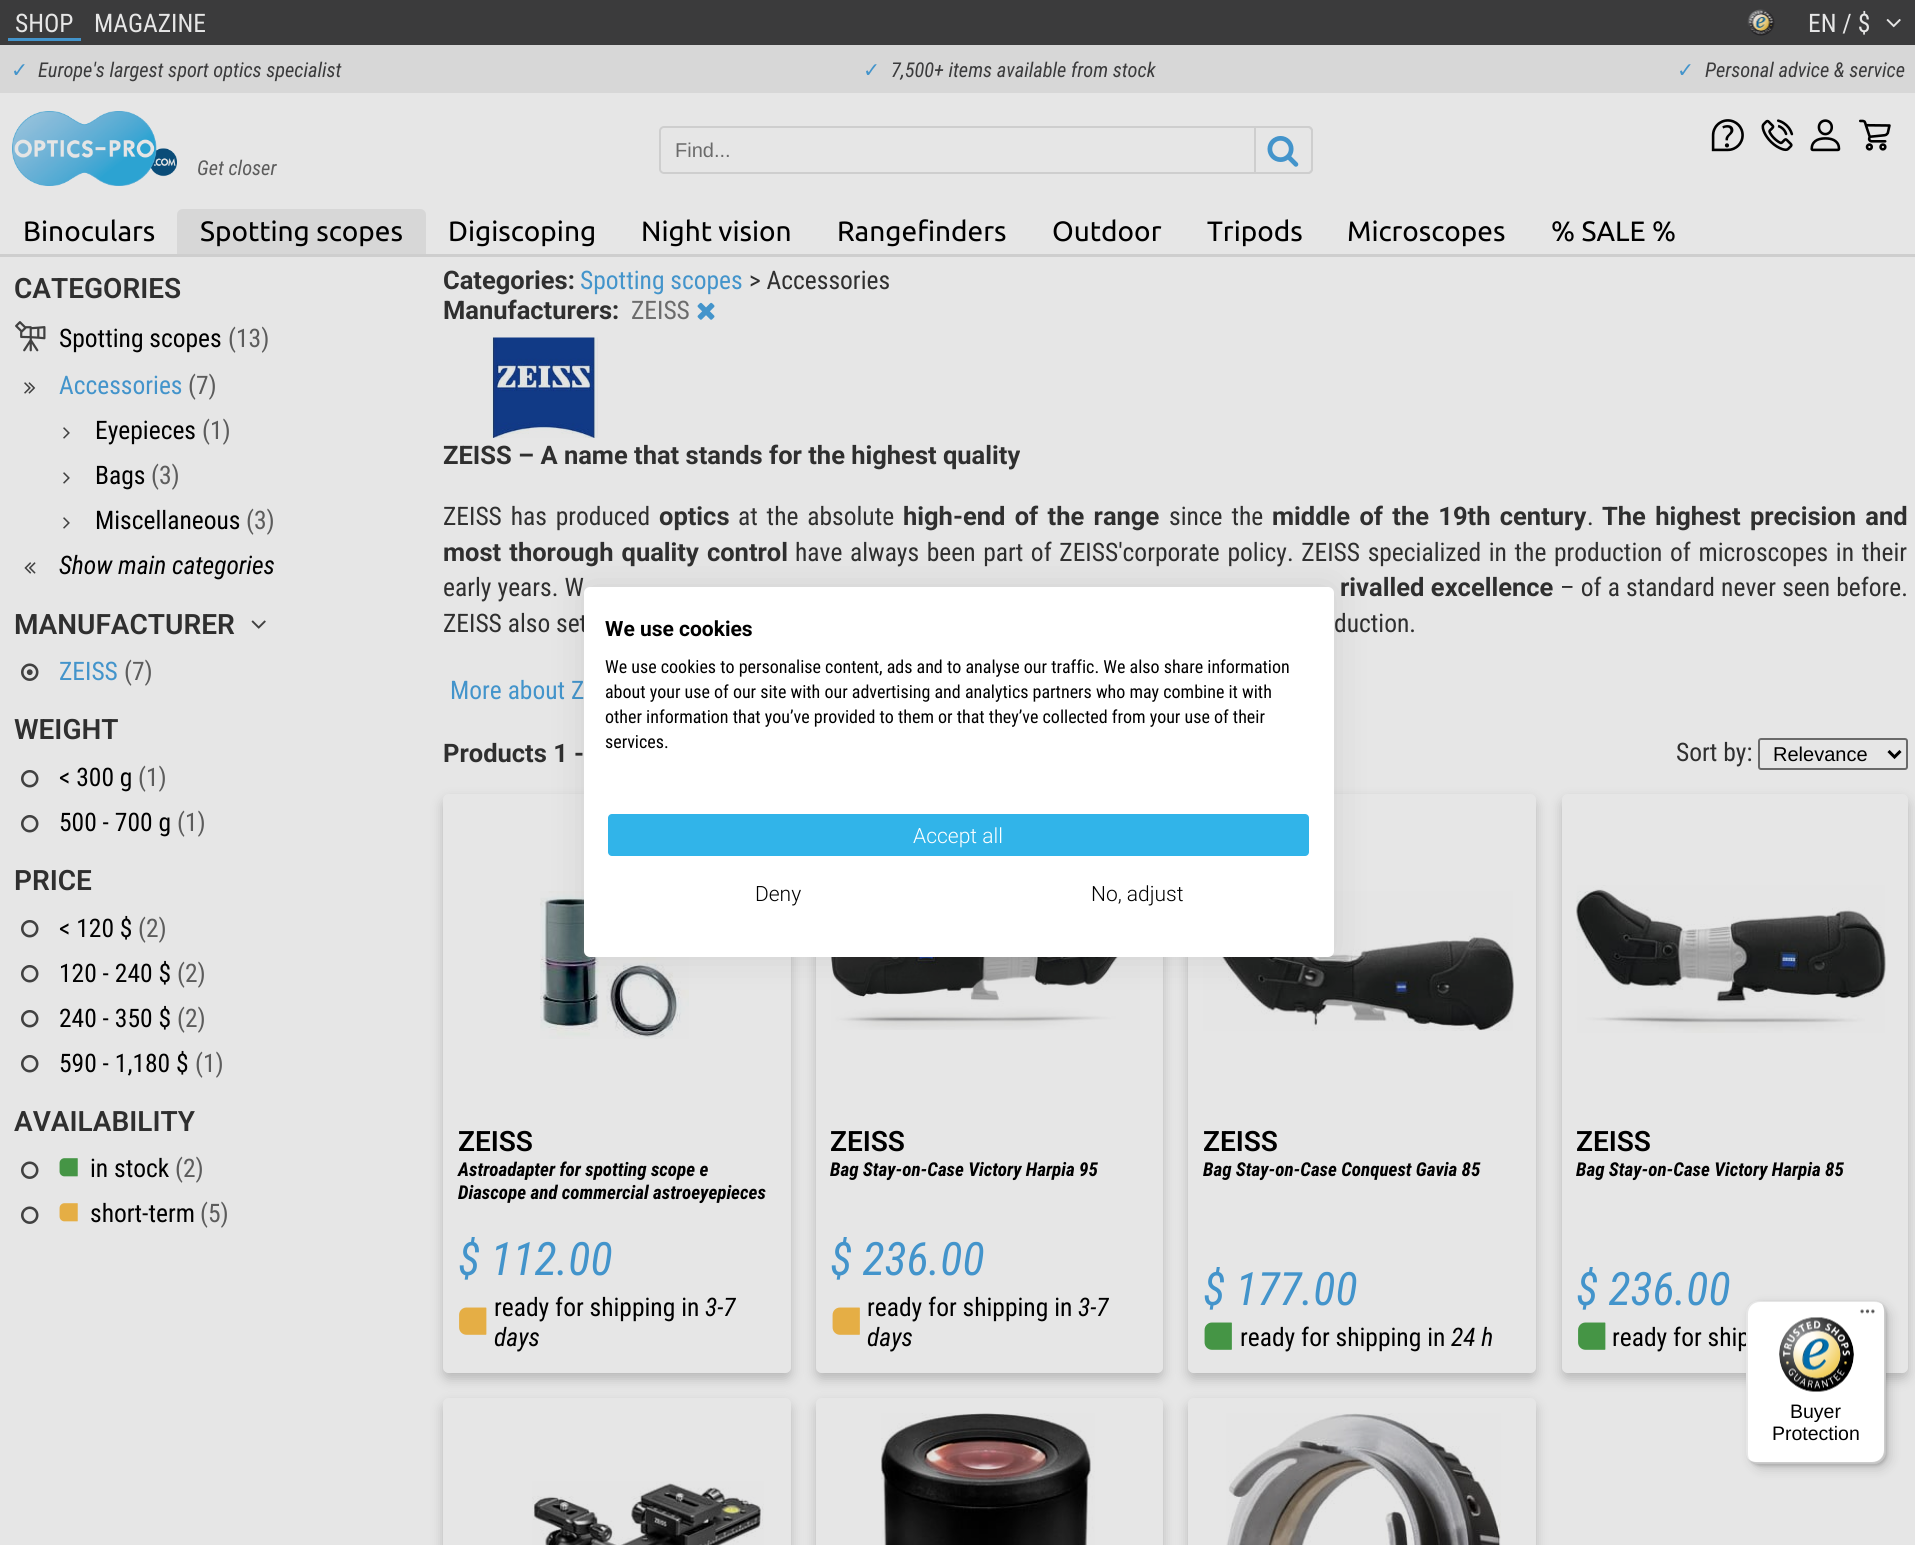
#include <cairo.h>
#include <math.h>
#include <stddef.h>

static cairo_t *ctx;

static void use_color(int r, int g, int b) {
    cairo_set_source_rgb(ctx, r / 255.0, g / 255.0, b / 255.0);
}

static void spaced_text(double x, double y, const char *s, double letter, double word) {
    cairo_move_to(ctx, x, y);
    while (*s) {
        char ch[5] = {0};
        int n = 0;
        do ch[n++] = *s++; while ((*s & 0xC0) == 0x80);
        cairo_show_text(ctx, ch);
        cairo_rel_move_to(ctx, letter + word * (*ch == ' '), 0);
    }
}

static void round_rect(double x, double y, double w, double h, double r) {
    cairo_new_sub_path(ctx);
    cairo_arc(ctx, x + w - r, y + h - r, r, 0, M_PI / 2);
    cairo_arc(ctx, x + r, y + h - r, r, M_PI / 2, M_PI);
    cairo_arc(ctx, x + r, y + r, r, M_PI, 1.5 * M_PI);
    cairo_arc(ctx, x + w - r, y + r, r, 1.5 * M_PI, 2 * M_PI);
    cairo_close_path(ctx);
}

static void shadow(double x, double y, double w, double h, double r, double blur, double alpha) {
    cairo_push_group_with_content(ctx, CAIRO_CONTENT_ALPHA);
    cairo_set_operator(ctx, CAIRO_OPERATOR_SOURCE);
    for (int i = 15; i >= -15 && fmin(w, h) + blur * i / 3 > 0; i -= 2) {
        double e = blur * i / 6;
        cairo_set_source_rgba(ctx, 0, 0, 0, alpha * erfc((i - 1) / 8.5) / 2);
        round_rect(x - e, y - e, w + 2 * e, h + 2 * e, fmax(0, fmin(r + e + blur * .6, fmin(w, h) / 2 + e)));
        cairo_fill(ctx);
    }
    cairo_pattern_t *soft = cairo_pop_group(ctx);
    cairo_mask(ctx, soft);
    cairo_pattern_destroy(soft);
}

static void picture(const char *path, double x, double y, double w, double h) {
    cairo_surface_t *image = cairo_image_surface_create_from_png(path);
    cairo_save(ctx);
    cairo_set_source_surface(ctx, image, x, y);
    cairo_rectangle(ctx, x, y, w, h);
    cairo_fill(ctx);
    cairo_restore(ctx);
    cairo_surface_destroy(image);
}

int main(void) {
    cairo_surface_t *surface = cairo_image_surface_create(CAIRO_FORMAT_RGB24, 1915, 1545);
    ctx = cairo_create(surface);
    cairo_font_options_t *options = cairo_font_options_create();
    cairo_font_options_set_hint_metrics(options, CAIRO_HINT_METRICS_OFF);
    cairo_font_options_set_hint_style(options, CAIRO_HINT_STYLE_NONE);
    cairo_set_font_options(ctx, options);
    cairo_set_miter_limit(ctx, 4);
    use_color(230, 230, 230);
    cairo_paint(ctx);
    use_color(59, 59, 60);
    cairo_rectangle(ctx, 0, 0, 1915, 45);
    cairo_fill(ctx);
    cairo_select_font_face(ctx, "Roboto Condensed", CAIRO_FONT_SLANT_NORMAL, CAIRO_FONT_WEIGHT_NORMAL);
    cairo_set_font_size(ctx, 25.5);
    use_color(230, 230, 230);
    cairo_move_to(ctx, 15, 32);
    cairo_show_text(ctx, "SHOP");
    use_color(67, 148, 203);
    cairo_rectangle(ctx, 8, 38, 73, 3);
    cairo_fill(ctx);
    use_color(230, 230, 230);
    cairo_move_to(ctx, 94, 32);
    cairo_show_text(ctx, "MAGAZINE");
    picture("img1.png", 1747, 9, 28, 27);
    cairo_move_to(ctx, 1808, 32);
    cairo_show_text(ctx, "EN / $");
    picture("img2.png", 1886, 19, 15, 9);
    use_color(215, 215, 215);
    cairo_rectangle(ctx, 0, 45, 1915, 48);
    cairo_fill(ctx);
    cairo_select_font_face(ctx, "DejaVu Sans", CAIRO_FONT_SLANT_NORMAL, CAIRO_FONT_WEIGHT_NORMAL);
    cairo_set_font_size(ctx, 20.4);
    use_color(67, 148, 203);
    cairo_move_to(ctx, 11, 77);
    cairo_show_text(ctx, "✓");
    cairo_select_font_face(ctx, "Roboto Condensed", CAIRO_FONT_SLANT_ITALIC, CAIRO_FONT_WEIGHT_NORMAL);
    use_color(59, 59, 60);
    cairo_move_to(ctx, 38, 77);
    cairo_show_text(ctx, "Europe's largest sport optics specialist");
    cairo_select_font_face(ctx, "DejaVu Sans", CAIRO_FONT_SLANT_NORMAL, CAIRO_FONT_WEIGHT_NORMAL);
    use_color(67, 148, 203);
    cairo_move_to(ctx, 863, 77);
    cairo_show_text(ctx, "✓");
    cairo_select_font_face(ctx, "Roboto Condensed", CAIRO_FONT_SLANT_ITALIC, CAIRO_FONT_WEIGHT_NORMAL);
    use_color(59, 59, 60);
    cairo_move_to(ctx, 891, 77);
    cairo_show_text(ctx, "7,500+ items available from stock");
    cairo_select_font_face(ctx, "DejaVu Sans", CAIRO_FONT_SLANT_NORMAL, CAIRO_FONT_WEIGHT_NORMAL);
    use_color(67, 148, 203);
    cairo_move_to(ctx, 1677, 77);
    cairo_show_text(ctx, "✓");
    cairo_select_font_face(ctx, "Roboto Condensed", CAIRO_FONT_SLANT_ITALIC, CAIRO_FONT_WEIGHT_NORMAL);
    use_color(59, 59, 60);
    cairo_move_to(ctx, 1705, 77);
    cairo_show_text(ctx, "Personal advice & service");
    round_rect(660, 127, 652, 46, 4);
    use_color(206, 206, 206);
    cairo_stroke(ctx);
    cairo_select_font_face(ctx, "Liberation Sans", CAIRO_FONT_SLANT_NORMAL, CAIRO_FONT_WEIGHT_NORMAL);
    cairo_set_font_size(ctx, 20);
    use_color(107, 107, 107);
    cairo_move_to(ctx, 675, 157);
    cairo_show_text(ctx, "Find...");
    use_color(230, 230, 230);
    cairo_new_path(ctx);
    cairo_move_to(ctx, 1255, 127);
    cairo_line_to(ctx, 1308, 127);
    cairo_curve_to(ctx, 1310, 127, 1312, 129, 1312, 131);
    cairo_line_to(ctx, 1312, 169);
    cairo_curve_to(ctx, 1312, 171, 1310, 173, 1308, 173);
    cairo_line_to(ctx, 1255, 173);
    cairo_close_path(ctx);
    cairo_fill_preserve(ctx);
    use_color(206, 206, 206);
    cairo_stroke(ctx);
    picture("img3.png", 1267, 136, 32, 31);
    picture("img4.png", 1711, 119, 33, 33);
    picture("img5.png", 1761, 119, 33, 33);
    picture("img6.png", 1810, 119, 31, 33);
    picture("img7.png", 1859, 119, 32, 32);
    picture("img8.png", 12, 111, 165, 75);
    cairo_select_font_face(ctx, "Roboto Condensed", CAIRO_FONT_SLANT_ITALIC, CAIRO_FONT_WEIGHT_NORMAL);
    cairo_set_font_size(ctx, 20.4);
    use_color(92, 92, 92);
    cairo_move_to(ctx, 197, 175);
    cairo_show_text(ctx, "Get closer");
    cairo_select_font_face(ctx, "Ubuntu", CAIRO_FONT_SLANT_NORMAL, CAIRO_FONT_WEIGHT_NORMAL);
    cairo_set_font_size(ctx, 28);
    use_color(0, 0, 0);
    cairo_move_to(ctx, 23, 241);
    cairo_show_text(ctx, "Binoculars");
    use_color(215, 215, 215);
    cairo_new_path(ctx);
    cairo_move_to(ctx, 183, 209);
    cairo_line_to(ctx, 420, 209);
    cairo_curve_to(ctx, 423.5, 209, 426, 211.5, 426, 215);
    cairo_line_to(ctx, 426, 254);
    cairo_line_to(ctx, 177, 254);
    cairo_line_to(ctx, 177, 215);
    cairo_curve_to(ctx, 177, 211.5, 179.5, 209, 183, 209);
    cairo_close_path(ctx);
    cairo_fill(ctx);
    use_color(0, 0, 0);
    cairo_move_to(ctx, 200, 241);
    cairo_show_text(ctx, "Spotting scopes");
    cairo_move_to(ctx, 448, 241);
    cairo_show_text(ctx, "Digiscoping");
    cairo_move_to(ctx, 641, 241);
    cairo_show_text(ctx, "Night vision");
    cairo_move_to(ctx, 837, 241);
    cairo_show_text(ctx, "Rangefinders");
    cairo_move_to(ctx, 1052, 241);
    cairo_show_text(ctx, "Outdoor");
    cairo_move_to(ctx, 1207, 241);
    cairo_show_text(ctx, "Tripods");
    cairo_move_to(ctx, 1347, 241);
    cairo_show_text(ctx, "Microscopes");
    cairo_move_to(ctx, 1551, 241);
    cairo_show_text(ctx, "% SALE %");
    use_color(206, 206, 206);
    cairo_rectangle(ctx, 0, 254, 1915, 3);
    cairo_fill(ctx);
    cairo_select_font_face(ctx, "Roboto SemiBold", CAIRO_FONT_SLANT_NORMAL, CAIRO_FONT_WEIGHT_NORMAL);
    use_color(47, 47, 47);
    cairo_move_to(ctx, 14, 298);
    cairo_show_text(ctx, "CATEGORIES");
    picture("img9.png", 15, 321, 31, 31);
    cairo_select_font_face(ctx, "Roboto Condensed", CAIRO_FONT_SLANT_NORMAL, CAIRO_FONT_WEIGHT_NORMAL);
    cairo_set_font_size(ctx, 25.5);
    use_color(0, 0, 0);
    cairo_move_to(ctx, 59, 347);
    cairo_show_text(ctx, "Spotting scopes");
    use_color(92, 92, 92);
    cairo_move_to(ctx, 228, 347);
    cairo_show_text(ctx, "(13)");
    picture("img10.png", 24, 382, 12, 12);
    use_color(67, 148, 203);
    cairo_move_to(ctx, 59, 394);
    cairo_show_text(ctx, "Accessories");
    use_color(92, 92, 92);
    cairo_move_to(ctx, 188, 394);
    cairo_show_text(ctx, "(7)");
    picture("img11.png", 63, 427, 7, 12);
    use_color(0, 0, 0);
    cairo_move_to(ctx, 95, 439);
    cairo_show_text(ctx, "Eyepieces");
    use_color(92, 92, 92);
    cairo_move_to(ctx, 202, 439);
    cairo_show_text(ctx, "(1)");
    picture("img11.png", 63, 472, 7, 12);
    use_color(0, 0, 0);
    cairo_move_to(ctx, 95, 484);
    cairo_show_text(ctx, "Bags");
    use_color(92, 92, 92);
    cairo_move_to(ctx, 151, 484);
    cairo_show_text(ctx, "(3)");
    picture("img11.png", 63, 517, 7, 12);
    use_color(0, 0, 0);
    cairo_move_to(ctx, 95, 529);
    cairo_show_text(ctx, "Miscellaneous");
    use_color(92, 92, 92);
    cairo_move_to(ctx, 246, 529);
    cairo_show_text(ctx, "(3)");
    picture("img12.png", 24, 562, 12, 12);
    cairo_select_font_face(ctx, "Roboto Condensed", CAIRO_FONT_SLANT_ITALIC, CAIRO_FONT_WEIGHT_NORMAL);
    use_color(0, 0, 0);
    cairo_move_to(ctx, 59, 574);
    cairo_show_text(ctx, "Show main categories");
    cairo_select_font_face(ctx, "Roboto SemiBold", CAIRO_FONT_SLANT_NORMAL, CAIRO_FONT_WEIGHT_NORMAL);
    cairo_set_font_size(ctx, 28);
    use_color(47, 47, 47);
    cairo_move_to(ctx, 14, 634);
    cairo_show_text(ctx, "MANUFACTURER");
    picture("img13.png", 251, 620, 15, 9);
    picture("img14.png", 21, 663, 18, 18);
    cairo_select_font_face(ctx, "Roboto Condensed", CAIRO_FONT_SLANT_NORMAL, CAIRO_FONT_WEIGHT_NORMAL);
    cairo_set_font_size(ctx, 25.5);
    use_color(67, 148, 203);
    cairo_move_to(ctx, 59, 680);
    cairo_show_text(ctx, "ZEISS");
    use_color(92, 92, 92);
    cairo_move_to(ctx, 124, 680);
    cairo_show_text(ctx, "(7)");
    cairo_select_font_face(ctx, "Roboto SemiBold", CAIRO_FONT_SLANT_NORMAL, CAIRO_FONT_WEIGHT_NORMAL);
    cairo_set_font_size(ctx, 28);
    use_color(47, 47, 47);
    cairo_move_to(ctx, 14, 739);
    cairo_show_text(ctx, "WEIGHT");
    picture("img15.png", 21, 770, 18, 18);
    cairo_select_font_face(ctx, "Roboto Condensed", CAIRO_FONT_SLANT_NORMAL, CAIRO_FONT_WEIGHT_NORMAL);
    cairo_set_font_size(ctx, 25.5);
    use_color(0, 0, 0);
    cairo_move_to(ctx, 59, 786);
    cairo_show_text(ctx, "< 300 g");
    use_color(92, 92, 92);
    cairo_move_to(ctx, 138, 786);
    cairo_show_text(ctx, "(1)");
    picture("img15.png", 21, 815, 18, 18);
    use_color(0, 0, 0);
    cairo_move_to(ctx, 59, 831);
    cairo_show_text(ctx, "500 - 700 g");
    use_color(92, 92, 92);
    cairo_move_to(ctx, 177, 831);
    cairo_show_text(ctx, "(1)");
    cairo_select_font_face(ctx, "Roboto SemiBold", CAIRO_FONT_SLANT_NORMAL, CAIRO_FONT_WEIGHT_NORMAL);
    cairo_set_font_size(ctx, 28);
    use_color(47, 47, 47);
    cairo_move_to(ctx, 14, 890);
    cairo_show_text(ctx, "PRICE");
    picture("img15.png", 21, 920, 18, 18);
    cairo_select_font_face(ctx, "Roboto Condensed", CAIRO_FONT_SLANT_NORMAL, CAIRO_FONT_WEIGHT_NORMAL);
    cairo_set_font_size(ctx, 25.5);
    use_color(0, 0, 0);
    cairo_move_to(ctx, 59, 937);
    cairo_show_text(ctx, "< 120 $");
    use_color(92, 92, 92);
    cairo_move_to(ctx, 138, 937);
    cairo_show_text(ctx, "(2)");
    picture("img15.png", 21, 965, 18, 18);
    use_color(0, 0, 0);
    cairo_move_to(ctx, 59, 982);
    cairo_show_text(ctx, "120 - 240 $");
    use_color(92, 92, 92);
    cairo_move_to(ctx, 177, 982);
    cairo_show_text(ctx, "(2)");
    picture("img15.png", 21, 1010, 18, 18);
    use_color(0, 0, 0);
    cairo_move_to(ctx, 59, 1027);
    cairo_show_text(ctx, "240 - 350 $");
    use_color(92, 92, 92);
    cairo_move_to(ctx, 177, 1027);
    cairo_show_text(ctx, "(2)");
    picture("img15.png", 21, 1055, 18, 18);
    use_color(0, 0, 0);
    cairo_move_to(ctx, 59, 1072);
    cairo_show_text(ctx, "590 - 1,180 $");
    use_color(92, 92, 92);
    cairo_move_to(ctx, 195, 1072);
    cairo_show_text(ctx, "(1)");
    cairo_select_font_face(ctx, "Roboto SemiBold", CAIRO_FONT_SLANT_NORMAL, CAIRO_FONT_WEIGHT_NORMAL);
    cairo_set_font_size(ctx, 28);
    use_color(47, 47, 47);
    cairo_move_to(ctx, 14, 1131);
    cairo_show_text(ctx, "AVAILABILITY");
    picture("img16.png", 21, 1161, 18, 18);
    picture("img17.png", 59, 1158, 19, 19);
    cairo_select_font_face(ctx, "Roboto Condensed", CAIRO_FONT_SLANT_NORMAL, CAIRO_FONT_WEIGHT_NORMAL);
    cairo_set_font_size(ctx, 25.5);
    use_color(0, 0, 0);
    cairo_move_to(ctx, 90, 1177);
    cairo_show_text(ctx, "in stock");
    use_color(92, 92, 92);
    cairo_move_to(ctx, 175, 1177);
    cairo_show_text(ctx, "(2)");
    picture("img16.png", 21, 1206, 18, 18);
    picture("img18.png", 59, 1203, 19, 19);
    use_color(0, 0, 0);
    cairo_move_to(ctx, 90, 1222);
    cairo_show_text(ctx, "short-term");
    use_color(92, 92, 92);
    cairo_move_to(ctx, 200, 1222);
    cairo_show_text(ctx, "(5)");
    cairo_select_font_face(ctx, "Roboto", CAIRO_FONT_SLANT_NORMAL, CAIRO_FONT_WEIGHT_BOLD);
    use_color(47, 47, 47);
    cairo_move_to(ctx, 443, 289);
    cairo_show_text(ctx, "Categories:");
    cairo_select_font_face(ctx, "Roboto Condensed", CAIRO_FONT_SLANT_NORMAL, CAIRO_FONT_WEIGHT_NORMAL);
    use_color(67, 148, 203);
    cairo_move_to(ctx, 580, 289);
    cairo_show_text(ctx, "Spotting scopes");
    use_color(47, 47, 47);
    cairo_move_to(ctx, 749, 289);
    cairo_show_text(ctx, "> Accessories");
    cairo_select_font_face(ctx, "Roboto", CAIRO_FONT_SLANT_NORMAL, CAIRO_FONT_WEIGHT_BOLD);
    cairo_move_to(ctx, 443, 319);
    cairo_show_text(ctx, "Manufacturers:");
    cairo_select_font_face(ctx, "Roboto Condensed", CAIRO_FONT_SLANT_NORMAL, CAIRO_FONT_WEIGHT_NORMAL);
    use_color(107, 107, 107);
    cairo_move_to(ctx, 631, 319);
    cairo_show_text(ctx, "ZEISS");
    picture("img19.png", 697, 302, 18, 18);
    picture("img20.png", 490, 337, 108, 101);
    cairo_select_font_face(ctx, "Roboto", CAIRO_FONT_SLANT_NORMAL, CAIRO_FONT_WEIGHT_BOLD);
    use_color(47, 47, 47);
    cairo_move_to(ctx, 443, 464);
    cairo_show_text(ctx, "ZEISS – A name that stands for the highest quality");
    cairo_select_font_face(ctx, "Roboto Condensed", CAIRO_FONT_SLANT_NORMAL, CAIRO_FONT_WEIGHT_NORMAL);
    spaced_text(443, 525, "ZEISS has produced", 0, 3);
    cairo_select_font_face(ctx, "Roboto", CAIRO_FONT_SLANT_NORMAL, CAIRO_FONT_WEIGHT_BOLD);
    cairo_move_to(ctx, 659, 525);
    cairo_show_text(ctx, "optics");
    cairo_select_font_face(ctx, "Roboto Condensed", CAIRO_FONT_SLANT_NORMAL, CAIRO_FONT_WEIGHT_NORMAL);
    spaced_text(738, 525, "at the absolute", 0, 3);
    cairo_select_font_face(ctx, "Roboto", CAIRO_FONT_SLANT_NORMAL, CAIRO_FONT_WEIGHT_BOLD);
    spaced_text(903, 525, "high-end of the range", 0, 3);
    cairo_select_font_face(ctx, "Roboto Condensed", CAIRO_FONT_SLANT_NORMAL, CAIRO_FONT_WEIGHT_NORMAL);
    spaced_text(1169, 525, "since the", 0, 3);
    cairo_select_font_face(ctx, "Roboto", CAIRO_FONT_SLANT_NORMAL, CAIRO_FONT_WEIGHT_BOLD);
    spaced_text(1272, 525, "middle of the 19th century", 0, 3);
    cairo_select_font_face(ctx, "Roboto Condensed", CAIRO_FONT_SLANT_NORMAL, CAIRO_FONT_WEIGHT_NORMAL);
    cairo_move_to(ctx, 1587, 525);
    cairo_show_text(ctx, ".");
    cairo_select_font_face(ctx, "Roboto", CAIRO_FONT_SLANT_NORMAL, CAIRO_FONT_WEIGHT_BOLD);
    spaced_text(1602, 525, "The highest precision and", 0, 3);
    spaced_text(443, 561, "most thorough quality control", 0, 1.75);
    cairo_select_font_face(ctx, "Roboto Condensed", CAIRO_FONT_SLANT_NORMAL, CAIRO_FONT_WEIGHT_NORMAL);
    spaced_text(795, 561, "have always been part of ZEISS'corporate policy. ZEISS specialized in the production of microscopes in their", 0, 1.75);
    spaced_text(443, 596, "early years. W", 0, 0.25);
    cairo_select_font_face(ctx, "Roboto", CAIRO_FONT_SLANT_NORMAL, CAIRO_FONT_WEIGHT_BOLD);
    spaced_text(1340, 596, "rivalled excellence", 0, 0.25);
    cairo_select_font_face(ctx, "Roboto Condensed", CAIRO_FONT_SLANT_NORMAL, CAIRO_FONT_WEIGHT_NORMAL);
    spaced_text(1560, 596, "– of a standard never seen before.", 0, 0.25);
    cairo_move_to(ctx, 443, 632);
    cairo_show_text(ctx, "ZEISS also set");
    cairo_move_to(ctx, 1334, 632);
    cairo_show_text(ctx, "duction.");
    use_color(67, 148, 203);
    cairo_move_to(ctx, 450, 699);
    cairo_show_text(ctx, "More about Z");
    cairo_select_font_face(ctx, "Roboto", CAIRO_FONT_SLANT_NORMAL, CAIRO_FONT_WEIGHT_BOLD);
    use_color(47, 47, 47);
    cairo_move_to(ctx, 443, 762);
    cairo_show_text(ctx, "Products 1 -");
    cairo_select_font_face(ctx, "Roboto Condensed", CAIRO_FONT_SLANT_NORMAL, CAIRO_FONT_WEIGHT_NORMAL);
    cairo_move_to(ctx, 1676, 761);
    cairo_show_text(ctx, "Sort by:");
    round_rect(1759, 739, 148, 30, 2);
    use_color(106, 106, 106);
    cairo_stroke(ctx);
    cairo_new_path(ctx);
    cairo_move_to(ctx, 1888.5, 751);
    cairo_line_to(ctx, 1894.5, 757);
    cairo_line_to(ctx, 1900.5, 751);
    use_color(0, 0, 0);
    cairo_set_line_width(ctx, 3);
    cairo_stroke(ctx);
    cairo_select_font_face(ctx, "Liberation Sans", CAIRO_FONT_SLANT_NORMAL, CAIRO_FONT_WEIGHT_NORMAL);
    cairo_set_font_size(ctx, 20);
    cairo_move_to(ctx, 1773, 761);
    cairo_show_text(ctx, "Relevance");
    cairo_save(ctx);
    cairo_set_fill_rule(ctx, CAIRO_FILL_RULE_EVEN_ODD);
    cairo_new_path(ctx);
    cairo_move_to(ctx, 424, 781);
    cairo_line_to(ctx, 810, 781);
    cairo_line_to(ctx, 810, 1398);
    cairo_line_to(ctx, 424, 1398);
    cairo_close_path(ctx);
    cairo_move_to(ctx, 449, 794);
    cairo_line_to(ctx, 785, 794);
    cairo_curve_to(ctx, 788.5, 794, 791, 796.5, 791, 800);
    cairo_line_to(ctx, 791, 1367);
    cairo_curve_to(ctx, 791, 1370.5, 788.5, 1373, 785, 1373);
    cairo_line_to(ctx, 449, 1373);
    cairo_curve_to(ctx, 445.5, 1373, 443, 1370.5, 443, 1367);
    cairo_line_to(ctx, 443, 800);
    cairo_curve_to(ctx, 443, 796.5, 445.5, 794, 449, 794);
    cairo_close_path(ctx);
    cairo_clip(ctx);
    use_color(0, 0, 0);
    shadow(443, 800, 348, 579, 6, 6, 0.2);
    cairo_restore(ctx);
    picture("img21.png", 540, 891, 149, 148);
    cairo_select_font_face(ctx, "Roboto SemiBold", CAIRO_FONT_SLANT_NORMAL, CAIRO_FONT_WEIGHT_NORMAL);
    cairo_set_font_size(ctx, 28);
    cairo_move_to(ctx, 458, 1151);
    cairo_show_text(ctx, "ZEISS");
    cairo_select_font_face(ctx, "Roboto Condensed", CAIRO_FONT_SLANT_ITALIC, CAIRO_FONT_WEIGHT_BOLD);
    cairo_set_font_size(ctx, 19.1);
    cairo_move_to(ctx, 458, 1176);
    cairo_show_text(ctx, "Astroadapter for spotting scope e");
    cairo_move_to(ctx, 458, 1199);
    cairo_show_text(ctx, "Diascope and commercial astroeyepieces");
    cairo_select_font_face(ctx, "Roboto Condensed", CAIRO_FONT_SLANT_ITALIC, CAIRO_FONT_WEIGHT_NORMAL);
    cairo_set_font_size(ctx, 46);
    use_color(67, 148, 203);
    cairo_move_to(ctx, 458, 1275);
    cairo_show_text(ctx, "$ 112.00");
    picture("img22.png", 459, 1307, 28, 28);
    cairo_select_font_face(ctx, "Roboto Condensed", CAIRO_FONT_SLANT_NORMAL, CAIRO_FONT_WEIGHT_NORMAL);
    cairo_set_font_size(ctx, 25.5);
    use_color(0, 0, 0);
    cairo_move_to(ctx, 494, 1316);
    cairo_show_text(ctx, "ready for shipping in");
    cairo_select_font_face(ctx, "Roboto Condensed", CAIRO_FONT_SLANT_ITALIC, CAIRO_FONT_WEIGHT_NORMAL);
    cairo_move_to(ctx, 705, 1316);
    cairo_show_text(ctx, "3-7");
    cairo_move_to(ctx, 494, 1346);
    cairo_show_text(ctx, "days");
    cairo_save(ctx);
    cairo_set_fill_rule(ctx, CAIRO_FILL_RULE_EVEN_ODD);
    cairo_new_path(ctx);
    cairo_move_to(ctx, 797, 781);
    cairo_line_to(ctx, 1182, 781);
    cairo_line_to(ctx, 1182, 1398);
    cairo_line_to(ctx, 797, 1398);
    cairo_close_path(ctx);
    cairo_move_to(ctx, 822, 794);
    cairo_line_to(ctx, 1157, 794);
    cairo_curve_to(ctx, 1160.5, 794, 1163, 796.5, 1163, 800);
    cairo_line_to(ctx, 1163, 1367);
    cairo_curve_to(ctx, 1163, 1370.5, 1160.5, 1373, 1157, 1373);
    cairo_line_to(ctx, 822, 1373);
    cairo_curve_to(ctx, 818.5, 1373, 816, 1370.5, 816, 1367);
    cairo_line_to(ctx, 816, 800);
    cairo_curve_to(ctx, 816, 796.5, 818.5, 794, 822, 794);
    cairo_close_path(ctx);
    cairo_clip(ctx);
    use_color(0, 0, 0);
    shadow(816, 800, 347, 579, 6, 6, 0.2);
    cairo_restore(ctx);
    picture("img23.png", 831, 957, 309, 73);
    cairo_select_font_face(ctx, "Roboto SemiBold", CAIRO_FONT_SLANT_NORMAL, CAIRO_FONT_WEIGHT_NORMAL);
    cairo_set_font_size(ctx, 28);
    cairo_move_to(ctx, 830, 1151);
    cairo_show_text(ctx, "ZEISS");
    cairo_select_font_face(ctx, "Roboto Condensed", CAIRO_FONT_SLANT_ITALIC, CAIRO_FONT_WEIGHT_BOLD);
    cairo_set_font_size(ctx, 19.1);
    cairo_move_to(ctx, 830, 1176);
    cairo_show_text(ctx, "Bag Stay-on-Case Victory Harpia 95");
    cairo_select_font_face(ctx, "Roboto Condensed", CAIRO_FONT_SLANT_ITALIC, CAIRO_FONT_WEIGHT_NORMAL);
    cairo_set_font_size(ctx, 46);
    use_color(67, 148, 203);
    cairo_move_to(ctx, 830, 1275);
    cairo_show_text(ctx, "$ 236.00");
    picture("img24.png", 832, 1307, 28, 28);
    cairo_select_font_face(ctx, "Roboto Condensed", CAIRO_FONT_SLANT_NORMAL, CAIRO_FONT_WEIGHT_NORMAL);
    cairo_set_font_size(ctx, 25.5);
    use_color(0, 0, 0);
    cairo_move_to(ctx, 867, 1316);
    cairo_show_text(ctx, "ready for shipping in");
    cairo_select_font_face(ctx, "Roboto Condensed", CAIRO_FONT_SLANT_ITALIC, CAIRO_FONT_WEIGHT_NORMAL);
    cairo_move_to(ctx, 1078, 1316);
    cairo_show_text(ctx, "3-7");
    cairo_move_to(ctx, 867, 1346);
    cairo_show_text(ctx, "days");
    cairo_save(ctx);
    cairo_set_fill_rule(ctx, CAIRO_FILL_RULE_EVEN_ODD);
    cairo_new_path(ctx);
    cairo_move_to(ctx, 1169, 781);
    cairo_line_to(ctx, 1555, 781);
    cairo_line_to(ctx, 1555, 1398);
    cairo_line_to(ctx, 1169, 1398);
    cairo_close_path(ctx);
    cairo_move_to(ctx, 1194, 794);
    cairo_line_to(ctx, 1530, 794);
    cairo_curve_to(ctx, 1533.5, 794, 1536, 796.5, 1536, 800);
    cairo_line_to(ctx, 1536, 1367);
    cairo_curve_to(ctx, 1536, 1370.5, 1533.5, 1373, 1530, 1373);
    cairo_line_to(ctx, 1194, 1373);
    cairo_curve_to(ctx, 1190.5, 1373, 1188, 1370.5, 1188, 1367);
    cairo_line_to(ctx, 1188, 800);
    cairo_curve_to(ctx, 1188, 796.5, 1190.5, 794, 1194, 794);
    cairo_close_path(ctx);
    cairo_clip(ctx);
    use_color(0, 0, 0);
    shadow(1188, 800, 348, 579, 6, 6, 0.2);
    cairo_restore(ctx);
    picture("img25.png", 1203, 891, 311, 140);
    cairo_select_font_face(ctx, "Roboto SemiBold", CAIRO_FONT_SLANT_NORMAL, CAIRO_FONT_WEIGHT_NORMAL);
    cairo_set_font_size(ctx, 28);
    cairo_move_to(ctx, 1203, 1151);
    cairo_show_text(ctx, "ZEISS");
    cairo_select_font_face(ctx, "Roboto Condensed", CAIRO_FONT_SLANT_ITALIC, CAIRO_FONT_WEIGHT_BOLD);
    cairo_set_font_size(ctx, 19.1);
    cairo_move_to(ctx, 1203, 1176);
    cairo_show_text(ctx, "Bag Stay-on-Case Conquest Gavia 85");
    cairo_select_font_face(ctx, "Roboto Condensed", CAIRO_FONT_SLANT_ITALIC, CAIRO_FONT_WEIGHT_NORMAL);
    cairo_set_font_size(ctx, 46);
    use_color(67, 148, 203);
    cairo_move_to(ctx, 1203, 1305);
    cairo_show_text(ctx, "$ 177.00");
    picture("img26.png", 1204, 1322, 28, 28);
    cairo_select_font_face(ctx, "Roboto Condensed", CAIRO_FONT_SLANT_NORMAL, CAIRO_FONT_WEIGHT_NORMAL);
    cairo_set_font_size(ctx, 25.5);
    use_color(0, 0, 0);
    cairo_move_to(ctx, 1240, 1346);
    cairo_show_text(ctx, "ready for shipping in");
    cairo_select_font_face(ctx, "Roboto Condensed", CAIRO_FONT_SLANT_ITALIC, CAIRO_FONT_WEIGHT_NORMAL);
    cairo_move_to(ctx, 1451, 1346);
    cairo_show_text(ctx, "24 h");
    cairo_save(ctx);
    cairo_set_fill_rule(ctx, CAIRO_FILL_RULE_EVEN_ODD);
    cairo_new_path(ctx);
    cairo_move_to(ctx, 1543, 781);
    cairo_line_to(ctx, 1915, 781);
    cairo_line_to(ctx, 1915, 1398);
    cairo_line_to(ctx, 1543, 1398);
    cairo_close_path(ctx);
    cairo_move_to(ctx, 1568, 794);
    cairo_line_to(ctx, 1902, 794);
    cairo_curve_to(ctx, 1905.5, 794, 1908, 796.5, 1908, 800);
    cairo_line_to(ctx, 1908, 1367);
    cairo_curve_to(ctx, 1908, 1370.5, 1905.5, 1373, 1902, 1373);
    cairo_line_to(ctx, 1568, 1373);
    cairo_curve_to(ctx, 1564.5, 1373, 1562, 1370.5, 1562, 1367);
    cairo_line_to(ctx, 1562, 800);
    cairo_curve_to(ctx, 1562, 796.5, 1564.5, 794, 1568, 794);
    cairo_close_path(ctx);
    cairo_clip(ctx);
    use_color(0, 0, 0);
    shadow(1562, 800, 346, 579, 6, 6, 0.2);
    cairo_restore(ctx);
    picture("img27.png", 1576, 885, 310, 148);
    cairo_select_font_face(ctx, "Roboto SemiBold", CAIRO_FONT_SLANT_NORMAL, CAIRO_FONT_WEIGHT_NORMAL);
    cairo_set_font_size(ctx, 28);
    cairo_move_to(ctx, 1576, 1151);
    cairo_show_text(ctx, "ZEISS");
    cairo_select_font_face(ctx, "Roboto Condensed", CAIRO_FONT_SLANT_ITALIC, CAIRO_FONT_WEIGHT_BOLD);
    cairo_set_font_size(ctx, 19.1);
    cairo_move_to(ctx, 1576, 1176);
    cairo_show_text(ctx, "Bag Stay-on-Case Victory Harpia 85");
    cairo_select_font_face(ctx, "Roboto Condensed", CAIRO_FONT_SLANT_ITALIC, CAIRO_FONT_WEIGHT_NORMAL);
    cairo_set_font_size(ctx, 46);
    use_color(67, 148, 203);
    cairo_move_to(ctx, 1576, 1305);
    cairo_show_text(ctx, "$ 236.00");
    picture("img28.png", 1578, 1322, 28, 28);
    cairo_select_font_face(ctx, "Roboto Condensed", CAIRO_FONT_SLANT_NORMAL, CAIRO_FONT_WEIGHT_NORMAL);
    cairo_set_font_size(ctx, 25.5);
    use_color(0, 0, 0);
    cairo_move_to(ctx, 1612, 1346);
    cairo_show_text(ctx, "ready for ship");
    cairo_save(ctx);
    cairo_set_fill_rule(ctx, CAIRO_FILL_RULE_EVEN_ODD);
    cairo_new_path(ctx);
    cairo_move_to(ctx, 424, 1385);
    cairo_line_to(ctx, 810, 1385);
    cairo_line_to(ctx, 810, 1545);
    cairo_line_to(ctx, 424, 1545);
    cairo_close_path(ctx);
    cairo_move_to(ctx, 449, 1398);
    cairo_line_to(ctx, 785, 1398);
    cairo_curve_to(ctx, 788.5, 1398, 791, 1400.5, 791, 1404);
    cairo_line_to(ctx, 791, 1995);
    cairo_curve_to(ctx, 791, 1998.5, 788.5, 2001, 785, 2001);
    cairo_line_to(ctx, 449, 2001);
    cairo_curve_to(ctx, 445.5, 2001, 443, 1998.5, 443, 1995);
    cairo_line_to(ctx, 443, 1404);
    cairo_curve_to(ctx, 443, 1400.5, 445.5, 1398, 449, 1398);
    cairo_close_path(ctx);
    cairo_clip(ctx);
    use_color(0, 0, 0);
    shadow(443, 1404, 348, 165, 6, 6, 0.2);
    cairo_restore(ctx);
    picture("img29.png", 532, 1481, 232, 64);
    cairo_save(ctx);
    cairo_set_fill_rule(ctx, CAIRO_FILL_RULE_EVEN_ODD);
    cairo_new_path(ctx);
    cairo_move_to(ctx, 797, 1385);
    cairo_line_to(ctx, 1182, 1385);
    cairo_line_to(ctx, 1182, 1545);
    cairo_line_to(ctx, 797, 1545);
    cairo_close_path(ctx);
    cairo_move_to(ctx, 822, 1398);
    cairo_line_to(ctx, 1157, 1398);
    cairo_curve_to(ctx, 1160.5, 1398, 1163, 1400.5, 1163, 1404);
    cairo_line_to(ctx, 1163, 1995);
    cairo_curve_to(ctx, 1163, 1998.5, 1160.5, 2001, 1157, 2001);
    cairo_line_to(ctx, 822, 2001);
    cairo_curve_to(ctx, 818.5, 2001, 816, 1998.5, 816, 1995);
    cairo_line_to(ctx, 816, 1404);
    cairo_curve_to(ctx, 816, 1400.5, 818.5, 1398, 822, 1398);
    cairo_close_path(ctx);
    cairo_clip(ctx);
    use_color(0, 0, 0);
    shadow(816, 1404, 347, 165, 6, 6, 0.2);
    cairo_restore(ctx);
    picture("img30.png", 881, 1413, 214, 132);
    cairo_save(ctx);
    cairo_set_fill_rule(ctx, CAIRO_FILL_RULE_EVEN_ODD);
    cairo_new_path(ctx);
    cairo_move_to(ctx, 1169, 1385);
    cairo_line_to(ctx, 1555, 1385);
    cairo_line_to(ctx, 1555, 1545);
    cairo_line_to(ctx, 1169, 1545);
    cairo_close_path(ctx);
    cairo_move_to(ctx, 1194, 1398);
    cairo_line_to(ctx, 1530, 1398);
    cairo_curve_to(ctx, 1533.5, 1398, 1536, 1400.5, 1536, 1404);
    cairo_line_to(ctx, 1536, 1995);
    cairo_curve_to(ctx, 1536, 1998.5, 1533.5, 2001, 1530, 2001);
    cairo_line_to(ctx, 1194, 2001);
    cairo_curve_to(ctx, 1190.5, 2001, 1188, 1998.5, 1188, 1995);
    cairo_line_to(ctx, 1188, 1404);
    cairo_curve_to(ctx, 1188, 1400.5, 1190.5, 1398, 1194, 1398);
    cairo_close_path(ctx);
    cairo_clip(ctx);
    use_color(0, 0, 0);
    shadow(1188, 1404, 348, 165, 6, 6, 0.2);
    cairo_restore(ctx);
    picture("img31.png", 1226, 1413, 275, 132);
    use_color(0, 0, 0);
    shadow(584, 587, 750, 370, 6, 18, 0.1);
    use_color(255, 255, 255);
    round_rect(584, 587, 750, 370, 6);
    cairo_fill(ctx);
    cairo_select_font_face(ctx, "Roboto", CAIRO_FONT_SLANT_NORMAL, CAIRO_FONT_WEIGHT_BOLD);
    cairo_set_font_size(ctx, 21);
    use_color(0, 0, 0);
    cairo_move_to(ctx, 605, 636);
    cairo_show_text(ctx, "We use cookies");
    cairo_select_font_face(ctx, "Roboto Condensed", CAIRO_FONT_SLANT_NORMAL, CAIRO_FONT_WEIGHT_NORMAL);
    cairo_set_font_size(ctx, 18);
    cairo_move_to(ctx, 605, 673);
    cairo_show_text(ctx, "We use cookies to personalise content, ads and to analyse our traffic. We also share information");
    cairo_move_to(ctx, 605, 698);
    cairo_show_text(ctx, "about your use of our site with our advertising and analytics partners who may combine it with");
    cairo_move_to(ctx, 605, 723);
    cairo_show_text(ctx, "other information that you’ve provided to them or that they’ve collected from your use of their");
    cairo_move_to(ctx, 605, 748);
    cairo_show_text(ctx, "services.");
    use_color(49, 180, 233);
    round_rect(607, 813, 703, 44, 5);
    cairo_fill_preserve(ctx);
    use_color(255, 255, 255);
    cairo_set_line_width(ctx, 2);
    cairo_stroke(ctx);
    cairo_select_font_face(ctx, "Roboto Light", CAIRO_FONT_SLANT_NORMAL, CAIRO_FONT_WEIGHT_NORMAL);
    cairo_set_font_size(ctx, 21);
    cairo_move_to(ctx, 913, 843);
    cairo_show_text(ctx, "Accept all");
    use_color(0, 0, 0);
    cairo_move_to(ctx, 755, 901);
    cairo_show_text(ctx, "Deny");
    cairo_move_to(ctx, 1091, 901);
    cairo_show_text(ctx, "No, adjust");
    use_color(0, 0, 0);
    shadow(1751, 1305, 139, 164, 12, 6, 0.15);
    shadow(1748, 1302, 139, 164, 12, 1.5, 0.15);
    use_color(255, 255, 255);
    round_rect(1746, 1301, 140, 163, 12);
    cairo_fill(ctx);
    cairo_set_source_rgba(ctx, 0, 0, 0, 0.1);
    cairo_new_path(ctx);
    cairo_move_to(ctx, 1760, 1302);
    cairo_line_to(ctx, 1875, 1302);
    cairo_curve_to(ctx, 1878, 1302, 1880, 1303, 1882, 1304);
    cairo_curve_to(ctx, 1880, 1302, 1877, 1301, 1874, 1301);
    cairo_line_to(ctx, 1758, 1301);
    cairo_curve_to(ctx, 1751, 1301, 1746, 1306, 1746, 1313);
    cairo_line_to(ctx, 1746, 1452);
    cairo_curve_to(ctx, 1746, 1456, 1748, 1459, 1751, 1462);
    cairo_curve_to(ctx, 1749, 1459, 1748, 1457, 1748, 1454);
    cairo_line_to(ctx, 1748, 1314);
    cairo_curve_to(ctx, 1748, 1307, 1753, 1302, 1760, 1302);
    cairo_close_path(ctx);
    cairo_fill(ctx);
    cairo_set_source_rgba(ctx, 0, 0, 0, 0.2);
    cairo_new_path(ctx);
    cairo_move_to(ctx, 1748, 1459);
    cairo_curve_to(ctx, 1751, 1462, 1754, 1464, 1758, 1464);
    cairo_line_to(ctx, 1874, 1464);
    cairo_curve_to(ctx, 1881, 1464, 1886, 1459, 1886, 1452);
    cairo_line_to(ctx, 1886, 1313);
    cairo_curve_to(ctx, 1886, 1309, 1884, 1306, 1882, 1304);
    cairo_curve_to(ctx, 1883, 1306, 1884, 1308, 1884, 1311);
    cairo_line_to(ctx, 1884, 1450);
    cairo_curve_to(ctx, 1884, 1457, 1879, 1462, 1872, 1462);
    cairo_line_to(ctx, 1756, 1462);
    cairo_curve_to(ctx, 1753, 1462, 1751, 1461, 1748, 1459);
    cairo_close_path(ctx);
    cairo_fill(ctx);
    cairo_set_source_rgba(ctx, 0.196, 0.196, 0.196, 0.2);
    cairo_new_path(ctx);
    cairo_move_to(ctx, 1750, 1461);
    cairo_curve_to(ctx, 1752, 1463, 1755, 1464, 1758, 1464);
    cairo_line_to(ctx, 1874, 1464);
    cairo_curve_to(ctx, 1881, 1464, 1886, 1459, 1886, 1452);
    cairo_line_to(ctx, 1886, 1313);
    cairo_curve_to(ctx, 1886, 1309, 1884, 1306, 1882, 1304);
    cairo_curve_to(ctx, 1884, 1306, 1885, 1309, 1885, 1312);
    cairo_line_to(ctx, 1885, 1451);
    cairo_curve_to(ctx, 1885, 1458, 1879, 1463, 1873, 1463);
    cairo_line_to(ctx, 1757, 1463);
    cairo_curve_to(ctx, 1754, 1463, 1752, 1462, 1750, 1461);
    cairo_close_path(ctx);
    cairo_fill(ctx);
    cairo_set_source_rgba(ctx, 1, 1, 1, 0.3);
    cairo_new_path(ctx);
    cairo_move_to(ctx, 1749, 1460);
    cairo_curve_to(ctx, 1751, 1462, 1754, 1464, 1758, 1464);
    cairo_line_to(ctx, 1874, 1464);
    cairo_curve_to(ctx, 1881, 1464, 1886, 1459, 1886, 1452);
    cairo_line_to(ctx, 1886, 1313);
    cairo_curve_to(ctx, 1886, 1309, 1884, 1306, 1882, 1304);
    cairo_curve_to(ctx, 1884, 1306, 1885, 1309, 1885, 1312);
    cairo_line_to(ctx, 1885, 1451);
    cairo_curve_to(ctx, 1885, 1458, 1879, 1463, 1873, 1463);
    cairo_line_to(ctx, 1757, 1463);
    cairo_curve_to(ctx, 1754, 1463, 1751, 1462, 1749, 1460);
    cairo_close_path(ctx);
    cairo_fill(ctx);
    picture("img32.png", 1860, 1309, 15, 5);
    picture("img33.png", 1779, 1317, 75, 75);
    cairo_select_font_face(ctx, "Liberation Sans", CAIRO_FONT_SLANT_NORMAL, CAIRO_FONT_WEIGHT_NORMAL);
    cairo_set_font_size(ctx, 19.5);
    use_color(0, 0, 0);
    cairo_move_to(ctx, 1790, 1418);
    cairo_show_text(ctx, "Buyer");
    cairo_move_to(ctx, 1772, 1440);
    cairo_show_text(ctx, "Protection");
    cairo_surface_write_to_png(surface, "result.png");
    cairo_font_options_destroy(options);
    cairo_destroy(ctx);
    cairo_surface_destroy(surface);
    return 0;
}
